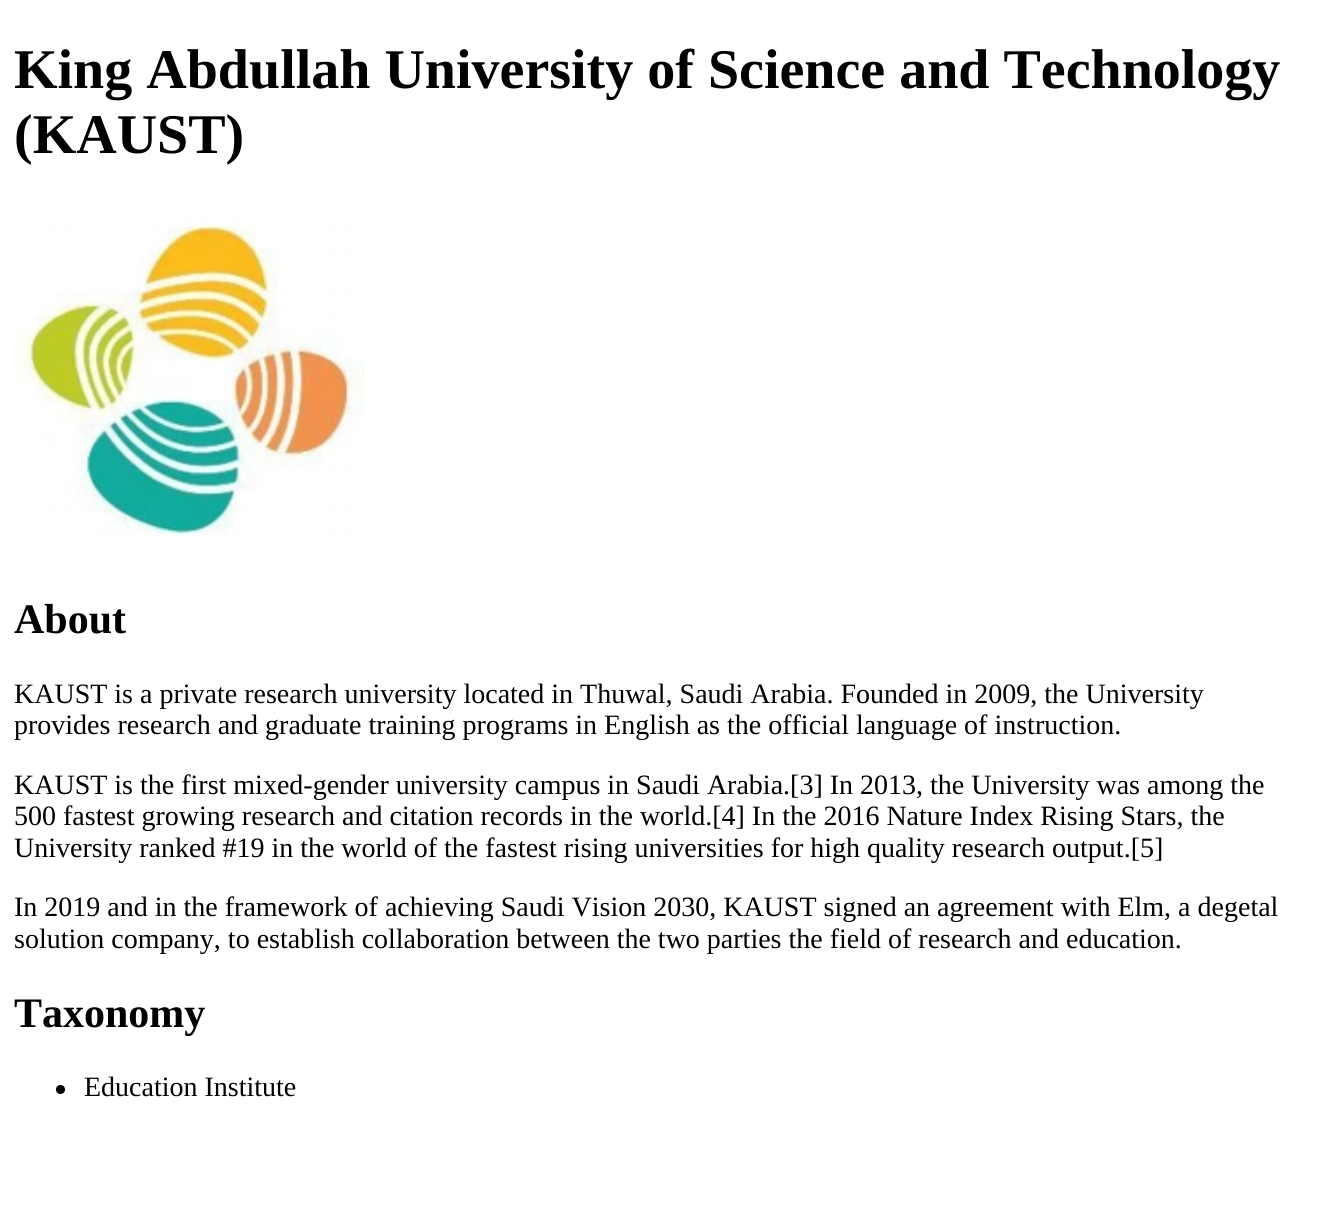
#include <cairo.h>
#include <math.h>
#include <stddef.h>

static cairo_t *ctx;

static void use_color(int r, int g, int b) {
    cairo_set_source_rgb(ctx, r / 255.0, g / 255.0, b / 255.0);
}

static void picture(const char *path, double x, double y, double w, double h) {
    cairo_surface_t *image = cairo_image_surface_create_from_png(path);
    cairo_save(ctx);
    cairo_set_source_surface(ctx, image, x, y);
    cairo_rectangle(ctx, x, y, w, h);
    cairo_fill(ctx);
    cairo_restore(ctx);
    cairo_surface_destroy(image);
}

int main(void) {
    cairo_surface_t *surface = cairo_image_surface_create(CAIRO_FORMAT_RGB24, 1317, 1205);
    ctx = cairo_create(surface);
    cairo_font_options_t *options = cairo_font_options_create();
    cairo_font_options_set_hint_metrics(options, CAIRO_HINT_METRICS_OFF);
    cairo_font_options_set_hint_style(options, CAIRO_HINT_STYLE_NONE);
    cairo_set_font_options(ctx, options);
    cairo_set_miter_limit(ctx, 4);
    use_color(255, 255, 255);
    cairo_paint(ctx);
    cairo_select_font_face(ctx, "Liberation Serif", CAIRO_FONT_SLANT_NORMAL, CAIRO_FONT_WEIGHT_BOLD);
    cairo_set_font_size(ctx, 56);
    use_color(0, 0, 0);
    cairo_move_to(ctx, 14, 88);
    cairo_show_text(ctx, "King Abdullah University of Science and Technology");
    cairo_move_to(ctx, 14, 153);
    cairo_show_text(ctx, "(KAUST)");
    picture("img1.png", 14, 219, 350, 319);
    cairo_set_font_size(ctx, 42);
    cairo_move_to(ctx, 14, 633);
    cairo_show_text(ctx, "About");
    cairo_select_font_face(ctx, "Liberation Serif", CAIRO_FONT_SLANT_NORMAL, CAIRO_FONT_WEIGHT_NORMAL);
    cairo_set_font_size(ctx, 28);
    cairo_move_to(ctx, 14, 703);
    cairo_show_text(ctx, "KAUST is a private research university located in Thuwal, Saudi Arabia. Founded in 2009, the University");
    cairo_move_to(ctx, 14, 734);
    cairo_show_text(ctx, "provides research and graduate training programs in English as the official language of instruction.");
    cairo_move_to(ctx, 14, 794);
    cairo_show_text(ctx, "KAUST is the first mixed-gender university campus in Saudi Arabia.[3] In 2013, the University was among the");
    cairo_move_to(ctx, 14, 825);
    cairo_show_text(ctx, "500 fastest growing research and citation records in the world.[4] In the 2016 Nature Index Rising Stars, the");
    cairo_move_to(ctx, 14, 857);
    cairo_show_text(ctx, "University ranked #19 in the world of the fastest rising universities for high quality research output.[5]");
    cairo_move_to(ctx, 14, 916);
    cairo_show_text(ctx, "In 2019 and in the framework of achieving Saudi Vision 2030, KAUST signed an agreement with Elm, a degetal");
    cairo_move_to(ctx, 14, 948);
    cairo_show_text(ctx, "solution company, to establish collaboration between the two parties the field of research and education.");
    cairo_select_font_face(ctx, "Liberation Serif", CAIRO_FONT_SLANT_NORMAL, CAIRO_FONT_WEIGHT_BOLD);
    cairo_set_font_size(ctx, 42);
    cairo_move_to(ctx, 14, 1027);
    cairo_show_text(ctx, "Taxonomy");
    cairo_new_path(ctx);
    cairo_arc(ctx, 60.5, 1089.5, 4.5, 0, 2 * M_PI);
    cairo_fill(ctx);
    cairo_select_font_face(ctx, "Liberation Serif", CAIRO_FONT_SLANT_NORMAL, CAIRO_FONT_WEIGHT_NORMAL);
    cairo_set_font_size(ctx, 28);
    cairo_move_to(ctx, 84, 1096);
    cairo_show_text(ctx, "Education Institute");
    cairo_surface_write_to_png(surface, "result.png");
    cairo_font_options_destroy(options);
    cairo_destroy(ctx);
    cairo_surface_destroy(surface);
    return 0;
}
